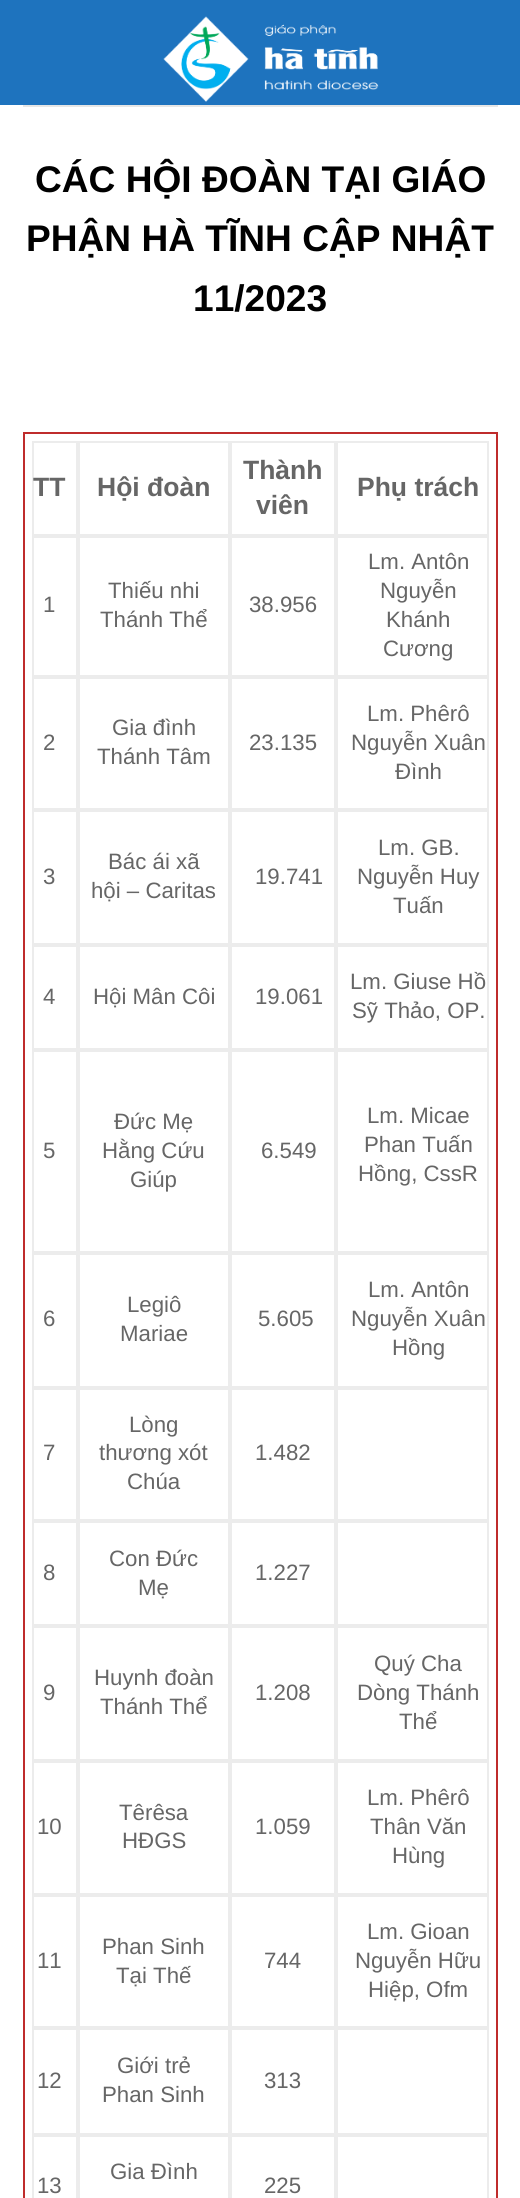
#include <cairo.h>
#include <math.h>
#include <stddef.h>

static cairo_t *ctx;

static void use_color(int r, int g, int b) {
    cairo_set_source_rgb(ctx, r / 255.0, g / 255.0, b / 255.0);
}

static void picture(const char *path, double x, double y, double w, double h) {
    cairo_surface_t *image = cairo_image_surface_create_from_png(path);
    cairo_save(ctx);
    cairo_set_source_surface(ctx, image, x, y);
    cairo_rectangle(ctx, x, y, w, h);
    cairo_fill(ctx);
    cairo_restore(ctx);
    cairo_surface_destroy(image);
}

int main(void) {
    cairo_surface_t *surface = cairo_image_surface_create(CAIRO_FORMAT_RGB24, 520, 2198);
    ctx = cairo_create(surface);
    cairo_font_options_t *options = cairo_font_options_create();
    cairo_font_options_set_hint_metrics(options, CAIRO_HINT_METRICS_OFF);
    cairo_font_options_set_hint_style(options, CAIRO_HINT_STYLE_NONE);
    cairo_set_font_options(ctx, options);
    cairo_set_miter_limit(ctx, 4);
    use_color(255, 255, 255);
    cairo_paint(ctx);
    use_color(30, 115, 190);
    cairo_rectangle(ctx, 0, 0, 520, 105);
    cairo_fill(ctx);
    picture("img1.png", 163, 16, 216, 86);
    use_color(230, 230, 230);
    cairo_rectangle(ctx, 23, 105, 475, 2);
    cairo_fill(ctx);
    cairo_select_font_face(ctx, "Liberation Sans", CAIRO_FONT_SLANT_NORMAL, CAIRO_FONT_WEIGHT_BOLD);
    cairo_set_font_size(ctx, 37.1);
    use_color(0, 0, 0);
    cairo_move_to(ctx, 35, 192);
    cairo_show_text(ctx, "CÁC HỘI ĐOÀN TẠI GIÁO");
    cairo_move_to(ctx, 26, 251);
    cairo_show_text(ctx, "PHẬN HÀ TĨNH CẬP NHẬT");
    cairo_move_to(ctx, 193, 311);
    cairo_show_text(ctx, "11/2023");
    cairo_rectangle(ctx, 24, 433, 473, 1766);
    use_color(191, 44, 44);
    cairo_stroke(ctx);
    cairo_rectangle(ctx, 33, 442, 44, 93);
    use_color(236, 236, 236);
    cairo_stroke(ctx);
    cairo_set_font_size(ctx, 26.5);
    use_color(102, 102, 102);
    cairo_move_to(ctx, 33, 496);
    cairo_show_text(ctx, "TT");
    cairo_rectangle(ctx, 79, 442, 150, 93);
    use_color(236, 236, 236);
    cairo_stroke(ctx);
    use_color(102, 102, 102);
    cairo_move_to(ctx, 97, 496);
    cairo_show_text(ctx, "Hội đoàn");
    cairo_rectangle(ctx, 231, 442, 104, 93);
    use_color(236, 236, 236);
    cairo_stroke(ctx);
    use_color(102, 102, 102);
    cairo_move_to(ctx, 243, 479);
    cairo_show_text(ctx, "Thành");
    cairo_move_to(ctx, 256, 514);
    cairo_show_text(ctx, "viên");
    cairo_rectangle(ctx, 337, 442, 151, 93);
    use_color(236, 236, 236);
    cairo_stroke(ctx);
    use_color(102, 102, 102);
    cairo_move_to(ctx, 357, 496);
    cairo_show_text(ctx, "Phụ trách");
    cairo_rectangle(ctx, 33, 537, 44, 139);
    use_color(236, 236, 236);
    cairo_stroke(ctx);
    cairo_select_font_face(ctx, "Liberation Sans", CAIRO_FONT_SLANT_NORMAL, CAIRO_FONT_WEIGHT_NORMAL);
    cairo_set_font_size(ctx, 22.25);
    use_color(102, 102, 102);
    cairo_move_to(ctx, 43, 612);
    cairo_show_text(ctx, "1");
    cairo_rectangle(ctx, 79, 537, 150, 139);
    use_color(236, 236, 236);
    cairo_stroke(ctx);
    use_color(102, 102, 102);
    cairo_move_to(ctx, 108, 598);
    cairo_show_text(ctx, "Thiếu nhi");
    cairo_move_to(ctx, 100, 627);
    cairo_show_text(ctx, "Thánh Thể");
    cairo_rectangle(ctx, 231, 537, 104, 139);
    use_color(236, 236, 236);
    cairo_stroke(ctx);
    use_color(102, 102, 102);
    cairo_move_to(ctx, 249, 612);
    cairo_show_text(ctx, "38.956");
    cairo_rectangle(ctx, 337, 537, 151, 139);
    use_color(236, 236, 236);
    cairo_stroke(ctx);
    use_color(102, 102, 102);
    cairo_move_to(ctx, 368, 569);
    cairo_show_text(ctx, "Lm. Antôn");
    cairo_move_to(ctx, 380, 598);
    cairo_show_text(ctx, "Nguyễn");
    cairo_move_to(ctx, 386, 627);
    cairo_show_text(ctx, "Khánh");
    cairo_move_to(ctx, 383, 656);
    cairo_show_text(ctx, "Cương");
    cairo_rectangle(ctx, 33, 678, 44, 131);
    use_color(236, 236, 236);
    cairo_stroke(ctx);
    use_color(102, 102, 102);
    cairo_move_to(ctx, 43, 750);
    cairo_show_text(ctx, "2");
    cairo_rectangle(ctx, 79, 678, 150, 131);
    use_color(236, 236, 236);
    cairo_stroke(ctx);
    use_color(102, 102, 102);
    cairo_move_to(ctx, 112, 735);
    cairo_show_text(ctx, "Gia đình");
    cairo_move_to(ctx, 97, 764);
    cairo_show_text(ctx, "Thánh Tâm");
    cairo_rectangle(ctx, 231, 678, 104, 131);
    use_color(236, 236, 236);
    cairo_stroke(ctx);
    use_color(102, 102, 102);
    cairo_move_to(ctx, 249, 750);
    cairo_show_text(ctx, "23.135");
    cairo_rectangle(ctx, 337, 678, 151, 131);
    use_color(236, 236, 236);
    cairo_stroke(ctx);
    use_color(102, 102, 102);
    cairo_move_to(ctx, 367, 721);
    cairo_show_text(ctx, "Lm. Phêrô");
    cairo_move_to(ctx, 351, 750);
    cairo_show_text(ctx, "Nguyễn Xuân");
    cairo_move_to(ctx, 395, 779);
    cairo_show_text(ctx, "Đình");
    cairo_rectangle(ctx, 33, 811, 44, 133);
    use_color(236, 236, 236);
    cairo_stroke(ctx);
    use_color(102, 102, 102);
    cairo_move_to(ctx, 43, 884);
    cairo_show_text(ctx, "3");
    cairo_rectangle(ctx, 79, 811, 150, 133);
    use_color(236, 236, 236);
    cairo_stroke(ctx);
    use_color(102, 102, 102);
    cairo_move_to(ctx, 108, 869);
    cairo_show_text(ctx, "Bác ái xã");
    cairo_move_to(ctx, 91, 898);
    cairo_show_text(ctx, "hội – Caritas");
    cairo_rectangle(ctx, 231, 811, 104, 133);
    use_color(236, 236, 236);
    cairo_stroke(ctx);
    use_color(102, 102, 102);
    cairo_move_to(ctx, 255, 884);
    cairo_show_text(ctx, "19.741");
    cairo_rectangle(ctx, 337, 811, 151, 133);
    use_color(236, 236, 236);
    cairo_stroke(ctx);
    use_color(102, 102, 102);
    cairo_move_to(ctx, 378, 855);
    cairo_show_text(ctx, "Lm. GB.");
    cairo_move_to(ctx, 357, 884);
    cairo_show_text(ctx, "Nguyễn Huy");
    cairo_move_to(ctx, 393, 913);
    cairo_show_text(ctx, "Tuấn");
    cairo_rectangle(ctx, 33, 946, 44, 103);
    use_color(236, 236, 236);
    cairo_stroke(ctx);
    use_color(102, 102, 102);
    cairo_move_to(ctx, 43, 1004);
    cairo_show_text(ctx, "4");
    cairo_rectangle(ctx, 79, 946, 150, 103);
    use_color(236, 236, 236);
    cairo_stroke(ctx);
    use_color(102, 102, 102);
    cairo_move_to(ctx, 93, 1004);
    cairo_show_text(ctx, "Hội Mân Côi");
    cairo_rectangle(ctx, 231, 946, 104, 103);
    use_color(236, 236, 236);
    cairo_stroke(ctx);
    use_color(102, 102, 102);
    cairo_move_to(ctx, 255, 1004);
    cairo_show_text(ctx, "19.061");
    cairo_rectangle(ctx, 337, 946, 151, 103);
    use_color(236, 236, 236);
    cairo_stroke(ctx);
    use_color(102, 102, 102);
    cairo_move_to(ctx, 350, 989);
    cairo_show_text(ctx, "Lm. Giuse Hồ");
    cairo_move_to(ctx, 352, 1018);
    cairo_show_text(ctx, "Sỹ Thảo, OP.");
    cairo_rectangle(ctx, 33, 1051, 44, 201);
    use_color(236, 236, 236);
    cairo_stroke(ctx);
    use_color(102, 102, 102);
    cairo_move_to(ctx, 43, 1158);
    cairo_show_text(ctx, "5");
    cairo_rectangle(ctx, 79, 1051, 150, 201);
    use_color(236, 236, 236);
    cairo_stroke(ctx);
    use_color(102, 102, 102);
    cairo_move_to(ctx, 114, 1129);
    cairo_show_text(ctx, "Đức Mẹ");
    cairo_move_to(ctx, 102, 1158);
    cairo_show_text(ctx, "Hằng Cứu");
    cairo_move_to(ctx, 130, 1187);
    cairo_show_text(ctx, "Giúp");
    cairo_rectangle(ctx, 231, 1051, 104, 201);
    use_color(236, 236, 236);
    cairo_stroke(ctx);
    use_color(102, 102, 102);
    cairo_move_to(ctx, 261, 1158);
    cairo_show_text(ctx, "6.549");
    cairo_rectangle(ctx, 337, 1051, 151, 201);
    use_color(236, 236, 236);
    cairo_stroke(ctx);
    use_color(102, 102, 102);
    cairo_move_to(ctx, 367, 1123);
    cairo_show_text(ctx, "Lm. Micae");
    cairo_move_to(ctx, 364, 1152);
    cairo_show_text(ctx, "Phan Tuấn");
    cairo_move_to(ctx, 358, 1181);
    cairo_show_text(ctx, "Hồng, CssR");
    cairo_rectangle(ctx, 33, 1254, 44, 133);
    use_color(236, 236, 236);
    cairo_stroke(ctx);
    use_color(102, 102, 102);
    cairo_move_to(ctx, 43, 1326);
    cairo_show_text(ctx, "6");
    cairo_rectangle(ctx, 79, 1254, 150, 133);
    use_color(236, 236, 236);
    cairo_stroke(ctx);
    use_color(102, 102, 102);
    cairo_move_to(ctx, 127, 1312);
    cairo_show_text(ctx, "Legiô");
    cairo_move_to(ctx, 120, 1341);
    cairo_show_text(ctx, "Mariae");
    cairo_rectangle(ctx, 231, 1254, 104, 133);
    use_color(236, 236, 236);
    cairo_stroke(ctx);
    use_color(102, 102, 102);
    cairo_move_to(ctx, 258, 1326);
    cairo_show_text(ctx, "5.605");
    cairo_rectangle(ctx, 337, 1254, 151, 133);
    use_color(236, 236, 236);
    cairo_stroke(ctx);
    use_color(102, 102, 102);
    cairo_move_to(ctx, 368, 1297);
    cairo_show_text(ctx, "Lm. Antôn");
    cairo_move_to(ctx, 351, 1326);
    cairo_show_text(ctx, "Nguyễn Xuân");
    cairo_move_to(ctx, 392, 1355);
    cairo_show_text(ctx, "Hồng");
    cairo_rectangle(ctx, 33, 1389, 44, 131);
    use_color(236, 236, 236);
    cairo_stroke(ctx);
    use_color(102, 102, 102);
    cairo_move_to(ctx, 43, 1460);
    cairo_show_text(ctx, "7");
    cairo_rectangle(ctx, 79, 1389, 150, 131);
    use_color(236, 236, 236);
    cairo_stroke(ctx);
    use_color(102, 102, 102);
    cairo_move_to(ctx, 129, 1432);
    cairo_show_text(ctx, "Lòng");
    cairo_move_to(ctx, 99, 1460);
    cairo_show_text(ctx, "thương xót");
    cairo_move_to(ctx, 127, 1489);
    cairo_show_text(ctx, "Chúa");
    cairo_rectangle(ctx, 231, 1389, 104, 131);
    use_color(236, 236, 236);
    cairo_stroke(ctx);
    use_color(102, 102, 102);
    cairo_move_to(ctx, 255, 1460);
    cairo_show_text(ctx, "1.482");
    cairo_rectangle(ctx, 337, 1389, 151, 131);
    use_color(236, 236, 236);
    cairo_stroke(ctx);
    cairo_rectangle(ctx, 33, 1522, 44, 103);
    cairo_stroke(ctx);
    use_color(102, 102, 102);
    cairo_move_to(ctx, 43, 1580);
    cairo_show_text(ctx, "8");
    cairo_rectangle(ctx, 79, 1522, 150, 103);
    use_color(236, 236, 236);
    cairo_stroke(ctx);
    use_color(102, 102, 102);
    cairo_move_to(ctx, 109, 1566);
    cairo_show_text(ctx, "Con Đức");
    cairo_move_to(ctx, 138, 1595);
    cairo_show_text(ctx, "Mẹ");
    cairo_rectangle(ctx, 231, 1522, 104, 103);
    use_color(236, 236, 236);
    cairo_stroke(ctx);
    use_color(102, 102, 102);
    cairo_move_to(ctx, 255, 1580);
    cairo_show_text(ctx, "1.227");
    cairo_rectangle(ctx, 337, 1522, 151, 103);
    use_color(236, 236, 236);
    cairo_stroke(ctx);
    cairo_rectangle(ctx, 33, 1627, 44, 133);
    cairo_stroke(ctx);
    use_color(102, 102, 102);
    cairo_move_to(ctx, 43, 1700);
    cairo_show_text(ctx, "9");
    cairo_rectangle(ctx, 79, 1627, 150, 133);
    use_color(236, 236, 236);
    cairo_stroke(ctx);
    use_color(102, 102, 102);
    cairo_move_to(ctx, 94, 1685);
    cairo_show_text(ctx, "Huynh đoàn");
    cairo_move_to(ctx, 100, 1714);
    cairo_show_text(ctx, "Thánh Thể");
    cairo_rectangle(ctx, 231, 1627, 104, 133);
    use_color(236, 236, 236);
    cairo_stroke(ctx);
    use_color(102, 102, 102);
    cairo_move_to(ctx, 255, 1700);
    cairo_show_text(ctx, "1.208");
    cairo_rectangle(ctx, 337, 1627, 151, 133);
    use_color(236, 236, 236);
    cairo_stroke(ctx);
    use_color(102, 102, 102);
    cairo_move_to(ctx, 374, 1671);
    cairo_show_text(ctx, "Quý Cha");
    cairo_move_to(ctx, 357, 1700);
    cairo_show_text(ctx, "Dòng Thánh");
    cairo_move_to(ctx, 399, 1729);
    cairo_show_text(ctx, "Thể");
    cairo_rectangle(ctx, 33, 1762, 44, 132);
    use_color(236, 236, 236);
    cairo_stroke(ctx);
    use_color(102, 102, 102);
    cairo_move_to(ctx, 37, 1834);
    cairo_show_text(ctx, "10");
    cairo_rectangle(ctx, 79, 1762, 150, 132);
    use_color(236, 236, 236);
    cairo_stroke(ctx);
    use_color(102, 102, 102);
    cairo_move_to(ctx, 119, 1820);
    cairo_show_text(ctx, "Têrêsa");
    cairo_move_to(ctx, 122, 1848);
    cairo_show_text(ctx, "HĐGS");
    cairo_rectangle(ctx, 231, 1762, 104, 132);
    use_color(236, 236, 236);
    cairo_stroke(ctx);
    use_color(102, 102, 102);
    cairo_move_to(ctx, 255, 1834);
    cairo_show_text(ctx, "1.059");
    cairo_rectangle(ctx, 337, 1762, 151, 132);
    use_color(236, 236, 236);
    cairo_stroke(ctx);
    use_color(102, 102, 102);
    cairo_move_to(ctx, 367, 1805);
    cairo_show_text(ctx, "Lm. Phêrô");
    cairo_move_to(ctx, 370, 1834);
    cairo_show_text(ctx, "Thân Văn");
    cairo_move_to(ctx, 392, 1863);
    cairo_show_text(ctx, "Hùng");
    cairo_rectangle(ctx, 33, 1896, 44, 131);
    use_color(236, 236, 236);
    cairo_stroke(ctx);
    use_color(102, 102, 102);
    cairo_move_to(ctx, 37, 1968);
    cairo_show_text(ctx, "11");
    cairo_rectangle(ctx, 79, 1896, 150, 131);
    use_color(236, 236, 236);
    cairo_stroke(ctx);
    use_color(102, 102, 102);
    cairo_move_to(ctx, 102, 1954);
    cairo_show_text(ctx, "Phan Sinh");
    cairo_move_to(ctx, 116, 1983);
    cairo_show_text(ctx, "Tại Thế");
    cairo_rectangle(ctx, 231, 1896, 104, 131);
    use_color(236, 236, 236);
    cairo_stroke(ctx);
    use_color(102, 102, 102);
    cairo_move_to(ctx, 264, 1968);
    cairo_show_text(ctx, "744");
    cairo_rectangle(ctx, 337, 1896, 151, 131);
    use_color(236, 236, 236);
    cairo_stroke(ctx);
    use_color(102, 102, 102);
    cairo_move_to(ctx, 367, 1939);
    cairo_show_text(ctx, "Lm. Gioan");
    cairo_move_to(ctx, 355, 1968);
    cairo_show_text(ctx, "Nguyễn Hữu");
    cairo_move_to(ctx, 368, 1997);
    cairo_show_text(ctx, "Hiệp, Ofm");
    cairo_rectangle(ctx, 33, 2029, 44, 105);
    use_color(236, 236, 236);
    cairo_stroke(ctx);
    use_color(102, 102, 102);
    cairo_move_to(ctx, 37, 2088);
    cairo_show_text(ctx, "12");
    cairo_rectangle(ctx, 79, 2029, 150, 105);
    use_color(236, 236, 236);
    cairo_stroke(ctx);
    use_color(102, 102, 102);
    cairo_move_to(ctx, 117, 2073);
    cairo_show_text(ctx, "Giới trẻ");
    cairo_move_to(ctx, 102, 2102);
    cairo_show_text(ctx, "Phan Sinh");
    cairo_rectangle(ctx, 231, 2029, 104, 105);
    use_color(236, 236, 236);
    cairo_stroke(ctx);
    use_color(102, 102, 102);
    cairo_move_to(ctx, 264, 2088);
    cairo_show_text(ctx, "313");
    cairo_rectangle(ctx, 337, 2029, 151, 105);
    use_color(236, 236, 236);
    cairo_stroke(ctx);
    cairo_rectangle(ctx, 79, 2136, 150, 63);
    cairo_stroke(ctx);
    use_color(102, 102, 102);
    cairo_move_to(ctx, 110, 2179);
    cairo_show_text(ctx, "Gia Đình");
    cairo_rectangle(ctx, 337, 2136, 151, 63);
    use_color(236, 236, 236);
    cairo_stroke(ctx);
    cairo_rectangle(ctx, 33, 2136, 44, 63);
    cairo_stroke(ctx);
    use_color(102, 102, 102);
    cairo_move_to(ctx, 37, 2193);
    cairo_show_text(ctx, "13");
    cairo_rectangle(ctx, 231, 2136, 104, 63);
    use_color(236, 236, 236);
    cairo_stroke(ctx);
    use_color(102, 102, 102);
    cairo_move_to(ctx, 264, 2193);
    cairo_show_text(ctx, "225");
    cairo_surface_write_to_png(surface, "result.png");
    cairo_font_options_destroy(options);
    cairo_destroy(ctx);
    cairo_surface_destroy(surface);
    return 0;
}
